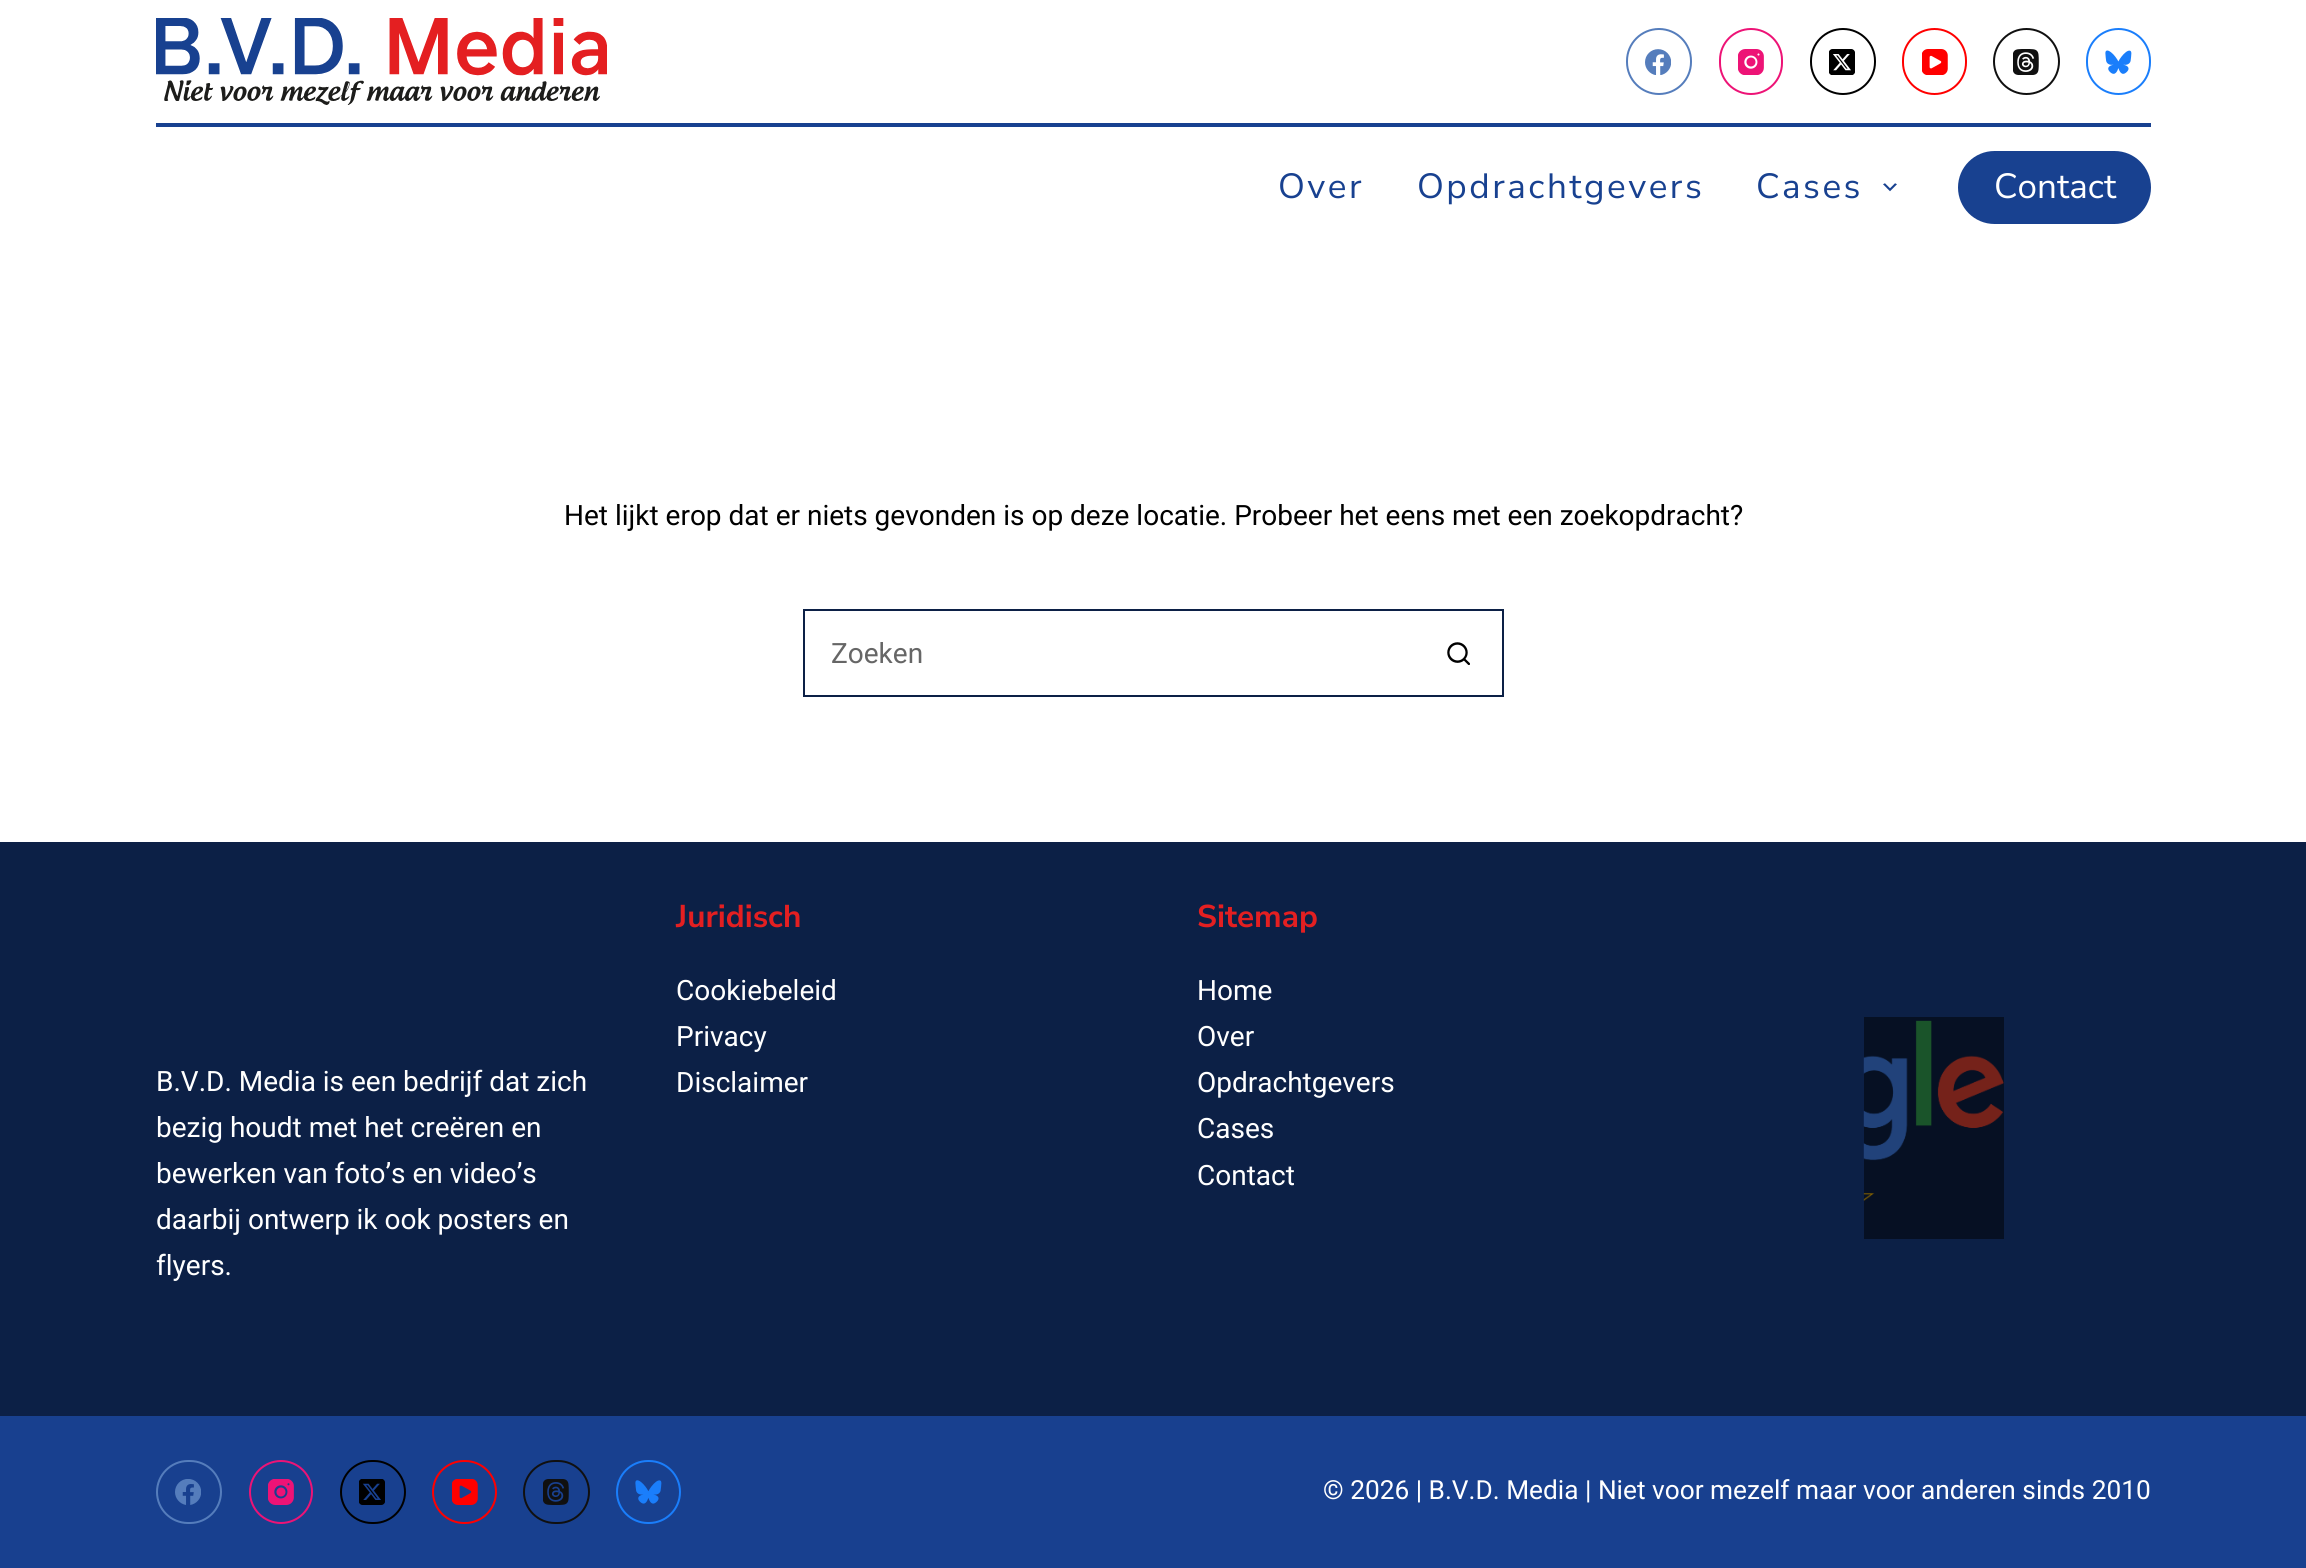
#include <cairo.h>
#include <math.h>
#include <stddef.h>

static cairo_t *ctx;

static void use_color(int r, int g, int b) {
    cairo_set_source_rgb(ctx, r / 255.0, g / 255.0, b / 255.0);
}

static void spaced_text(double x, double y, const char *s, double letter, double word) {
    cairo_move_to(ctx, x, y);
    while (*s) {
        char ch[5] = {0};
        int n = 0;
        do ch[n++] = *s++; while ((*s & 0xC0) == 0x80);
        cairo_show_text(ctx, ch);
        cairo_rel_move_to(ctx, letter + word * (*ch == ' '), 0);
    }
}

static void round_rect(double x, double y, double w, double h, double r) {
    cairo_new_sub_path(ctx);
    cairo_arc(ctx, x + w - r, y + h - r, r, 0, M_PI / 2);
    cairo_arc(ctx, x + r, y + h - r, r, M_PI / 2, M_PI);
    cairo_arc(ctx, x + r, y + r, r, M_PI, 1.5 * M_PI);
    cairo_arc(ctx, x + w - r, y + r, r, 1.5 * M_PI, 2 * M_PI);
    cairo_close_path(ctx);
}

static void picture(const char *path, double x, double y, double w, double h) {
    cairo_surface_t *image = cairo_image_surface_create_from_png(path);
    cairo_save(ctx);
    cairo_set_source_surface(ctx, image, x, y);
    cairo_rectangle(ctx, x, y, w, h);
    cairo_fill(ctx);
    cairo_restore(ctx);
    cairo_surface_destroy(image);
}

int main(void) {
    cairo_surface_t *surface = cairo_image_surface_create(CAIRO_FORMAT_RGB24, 2306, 1568);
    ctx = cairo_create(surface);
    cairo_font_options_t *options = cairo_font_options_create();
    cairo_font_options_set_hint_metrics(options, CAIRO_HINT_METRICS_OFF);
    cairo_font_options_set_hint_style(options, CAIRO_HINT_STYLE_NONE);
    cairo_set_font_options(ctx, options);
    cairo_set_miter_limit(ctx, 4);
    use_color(255, 255, 255);
    cairo_paint(ctx);
    picture("img1.png", 156, 18, 451, 87);
    round_rect(1627, 29, 64, 65, 32);
    use_color(85, 125, 188);
    cairo_stroke(ctx);
    picture("img2.png", 1645, 49, 26, 26);
    round_rect(1720, 29, 62, 65, 31);
    use_color(237, 19, 118);
    cairo_stroke(ctx);
    picture("img3.png", 1738, 49, 26, 26);
    round_rect(1811, 29, 64, 65, 32);
    use_color(0, 0, 0);
    cairo_stroke(ctx);
    picture("img4.png", 1829, 49, 26, 26);
    round_rect(1903, 29, 63, 65, 31.5);
    use_color(255, 0, 0);
    cairo_stroke(ctx);
    picture("img5.png", 1922, 49, 26, 26);
    cairo_arc(ctx, 2026.5, 61.5, 32.5, 0, 2 * M_PI);
    use_color(16, 16, 16);
    cairo_stroke(ctx);
    picture("img6.png", 2013, 49, 26, 26);
    round_rect(2087, 29, 63, 65, 31.5);
    use_color(26, 126, 251);
    cairo_stroke(ctx);
    picture("img7.png", 2105, 50, 27, 24);
    use_color(24, 65, 144);
    cairo_rectangle(ctx, 156, 123, 1995, 4);
    cairo_fill(ctx);
    cairo_select_font_face(ctx, "Nunito Sans", CAIRO_FONT_SLANT_NORMAL, CAIRO_FONT_WEIGHT_NORMAL);
    cairo_set_font_size(ctx, 35);
    spaced_text(1278, 198, "Over", 2.5, 0);
    spaced_text(1417, 198, "Opdrachtgevers", 2.5, 0);
    spaced_text(1756, 198, "Cases", 2.5, 0);
    picture("img8.png", 1883, 183, 14, 9);
    round_rect(1958, 151, 193, 73, 36.5);
    cairo_fill(ctx);
    use_color(255, 255, 255);
    cairo_move_to(ctx, 1994, 198);
    cairo_show_text(ctx, "Contact");
    cairo_select_font_face(ctx, "Roboto", CAIRO_FONT_SLANT_NORMAL, CAIRO_FONT_WEIGHT_NORMAL);
    cairo_set_font_size(ctx, 28);
    use_color(0, 0, 0);
    cairo_move_to(ctx, 564, 525);
    cairo_show_text(ctx, "Het lijkt erop dat er niets gevonden is op deze locatie. Probeer het eens met een zoekopdracht?");
    use_color(12, 32, 70);
    cairo_rectangle(ctx, 803, 609, 700, 2);
    cairo_fill(ctx);
    cairo_rectangle(ctx, 803, 695, 613, 2);
    cairo_fill(ctx);
    cairo_rectangle(ctx, 803, 609, 2, 88);
    cairo_fill(ctx);
    use_color(102, 102, 102);
    cairo_move_to(ctx, 831, 663);
    cairo_show_text(ctx, "Zoeken");
    use_color(12, 32, 70);
    cairo_rectangle(ctx, 1502, 609, 2, 88);
    cairo_fill(ctx);
    cairo_rectangle(ctx, 1416, 695, 87, 2);
    cairo_fill(ctx);
    picture("img9.png", 1447, 642, 23, 23);
    cairo_rectangle(ctx, 0, 842, 2306, 574);
    cairo_fill(ctx);
    use_color(6, 16, 35);
    cairo_rectangle(ctx, 1864, 1017, 140, 222);
    cairo_fill(ctx);
    use_color(255, 255, 255);
    cairo_move_to(ctx, 156, 1091);
    cairo_show_text(ctx, "B.V.D. Media is een bedrijf dat zich");
    cairo_move_to(ctx, 156, 1137);
    cairo_show_text(ctx, "bezig houdt met het creëren en");
    cairo_move_to(ctx, 156, 1183);
    cairo_show_text(ctx, "bewerken van foto’s en video’s");
    cairo_move_to(ctx, 156, 1229);
    cairo_show_text(ctx, "daarbij ontwerp ik ook posters en");
    cairo_move_to(ctx, 156, 1275);
    cairo_show_text(ctx, "flyers.");
    cairo_select_font_face(ctx, "Nunito Sans", CAIRO_FONT_SLANT_NORMAL, CAIRO_FONT_WEIGHT_BOLD);
    cairo_set_font_size(ctx, 31.5);
    use_color(228, 31, 33);
    cairo_move_to(ctx, 676, 927);
    cairo_show_text(ctx, "Juridisch");
    cairo_select_font_face(ctx, "Roboto", CAIRO_FONT_SLANT_NORMAL, CAIRO_FONT_WEIGHT_NORMAL);
    cairo_set_font_size(ctx, 28);
    use_color(255, 255, 255);
    cairo_move_to(ctx, 676, 1000);
    cairo_show_text(ctx, "Cookiebeleid");
    cairo_move_to(ctx, 676, 1046);
    cairo_show_text(ctx, "Privacy");
    cairo_move_to(ctx, 676, 1092);
    cairo_show_text(ctx, "Disclaimer");
    cairo_select_font_face(ctx, "Nunito Sans", CAIRO_FONT_SLANT_NORMAL, CAIRO_FONT_WEIGHT_BOLD);
    cairo_set_font_size(ctx, 31.5);
    use_color(228, 31, 33);
    cairo_move_to(ctx, 1197, 927);
    cairo_show_text(ctx, "Sitemap");
    cairo_select_font_face(ctx, "Roboto", CAIRO_FONT_SLANT_NORMAL, CAIRO_FONT_WEIGHT_NORMAL);
    cairo_set_font_size(ctx, 28);
    use_color(255, 255, 255);
    cairo_move_to(ctx, 1197, 1000);
    cairo_show_text(ctx, "Home");
    cairo_move_to(ctx, 1197, 1046);
    cairo_show_text(ctx, "Over");
    cairo_move_to(ctx, 1197, 1092);
    cairo_show_text(ctx, "Opdrachtgevers");
    cairo_move_to(ctx, 1197, 1138);
    cairo_show_text(ctx, "Cases");
    cairo_move_to(ctx, 1197, 1185);
    cairo_show_text(ctx, "Contact");
    picture("img10.png", 1863, 1020, 141, 181);
    use_color(24, 64, 143);
    cairo_rectangle(ctx, 0, 1416, 2306, 152);
    cairo_fill(ctx);
    round_rect(157, 1461, 64, 62, 31);
    use_color(85, 125, 188);
    cairo_stroke(ctx);
    picture("img11.png", 175, 1479, 26, 26);
    cairo_arc(ctx, 281, 1492, 31, 0, 2 * M_PI);
    use_color(237, 19, 118);
    cairo_stroke(ctx);
    picture("img12.png", 268, 1479, 26, 26);
    round_rect(341, 1461, 64, 62, 31);
    use_color(0, 0, 0);
    cairo_stroke(ctx);
    picture("img13.png", 359, 1479, 26, 26);
    round_rect(433, 1461, 63, 62, 31);
    use_color(255, 0, 0);
    cairo_stroke(ctx);
    picture("img14.png", 452, 1479, 26, 26);
    round_rect(524, 1461, 65, 62, 31);
    use_color(16, 16, 16);
    cairo_stroke(ctx);
    picture("img15.png", 543, 1479, 26, 26);
    round_rect(617, 1461, 63, 62, 31);
    use_color(26, 126, 251);
    cairo_stroke(ctx);
    picture("img16.png", 635, 1480, 27, 24);
    cairo_set_font_size(ctx, 26.25);
    use_color(255, 255, 255);
    cairo_move_to(ctx, 1323, 1499);
    cairo_show_text(ctx, "© 2026 | B.V.D. Media | Niet voor mezelf maar voor anderen sinds 2010");
    cairo_surface_write_to_png(surface, "result.png");
    cairo_font_options_destroy(options);
    cairo_destroy(ctx);
    cairo_surface_destroy(surface);
    return 0;
}
